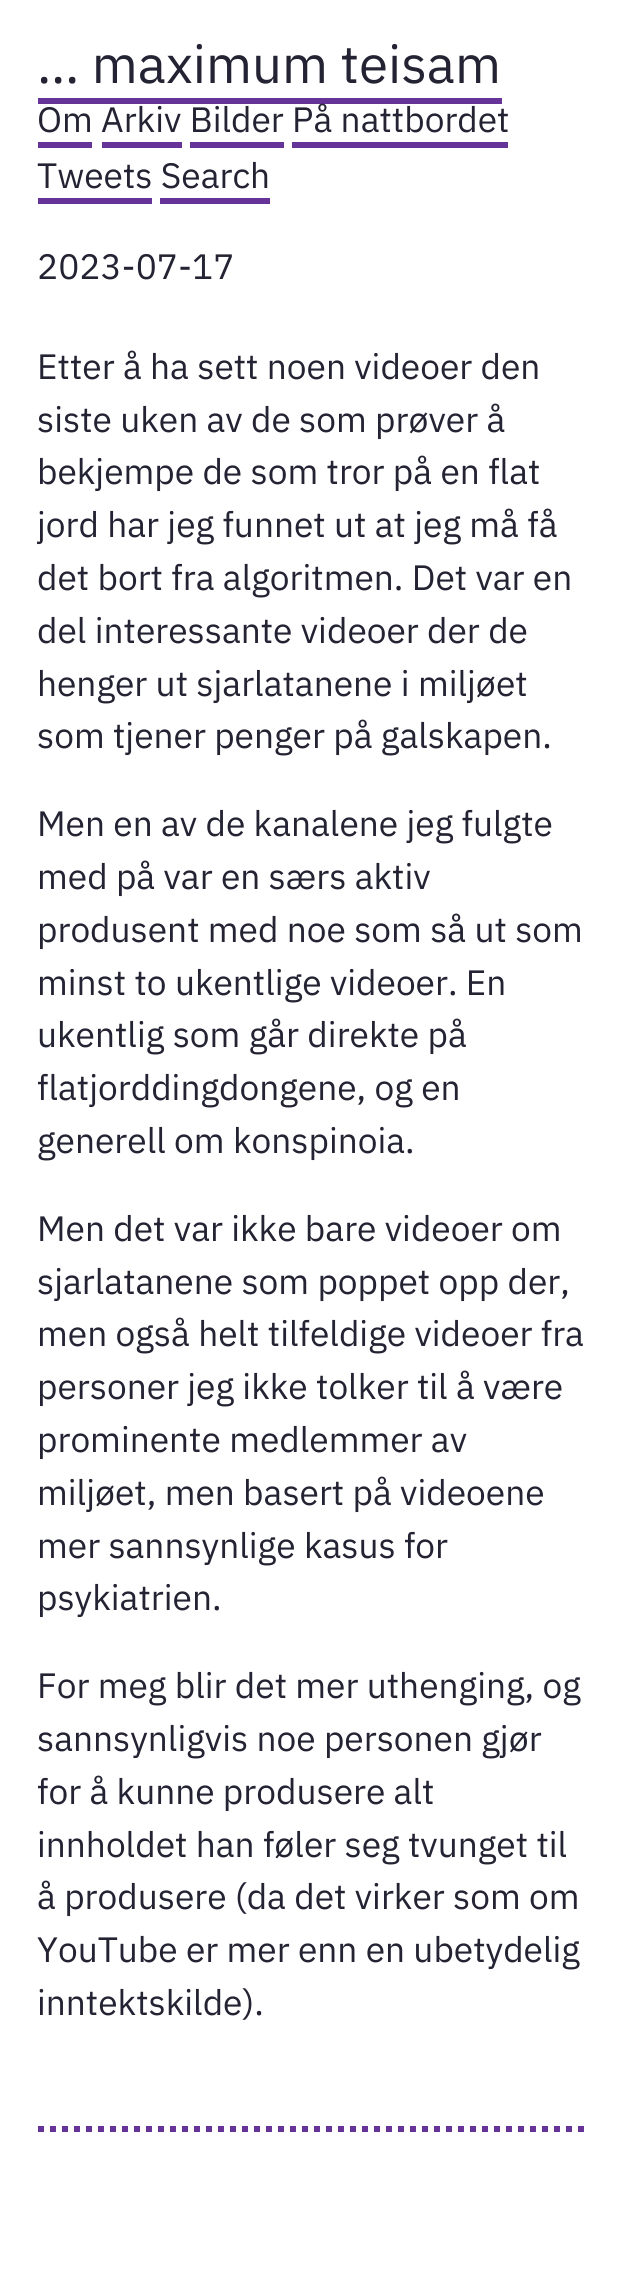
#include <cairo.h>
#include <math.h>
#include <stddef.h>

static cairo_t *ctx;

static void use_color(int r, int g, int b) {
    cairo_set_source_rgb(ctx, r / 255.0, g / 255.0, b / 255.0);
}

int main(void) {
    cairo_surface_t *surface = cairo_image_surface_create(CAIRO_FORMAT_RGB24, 622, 2288);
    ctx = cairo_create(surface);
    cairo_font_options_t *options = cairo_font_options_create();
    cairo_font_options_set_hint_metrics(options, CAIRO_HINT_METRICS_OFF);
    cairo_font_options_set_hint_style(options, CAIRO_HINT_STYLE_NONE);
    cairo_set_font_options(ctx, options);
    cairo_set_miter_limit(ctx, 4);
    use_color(255, 255, 255);
    cairo_paint(ctx);
    cairo_select_font_face(ctx, "IBM Plex Sans", CAIRO_FONT_SLANT_NORMAL, CAIRO_FONT_WEIGHT_NORMAL);
    cairo_set_font_size(ctx, 52.75);
    use_color(35, 35, 51);
    cairo_move_to(ctx, 37, 83);
    cairo_show_text(ctx, "… maximum teisam");
    use_color(102, 51, 153);
    cairo_rectangle(ctx, 38, 98, 464, 6);
    cairo_fill(ctx);
    cairo_set_font_size(ctx, 35.25);
    use_color(35, 35, 51);
    cairo_move_to(ctx, 37, 132);
    cairo_show_text(ctx, "Om Arkiv Bilder På nattbordet");
    use_color(102, 51, 153);
    cairo_rectangle(ctx, 38, 142, 54, 6);
    cairo_fill(ctx);
    cairo_rectangle(ctx, 102, 142, 80, 6);
    cairo_fill(ctx);
    cairo_rectangle(ctx, 190, 142, 94, 6);
    cairo_fill(ctx);
    cairo_rectangle(ctx, 292, 142, 216, 6);
    cairo_fill(ctx);
    use_color(35, 35, 51);
    cairo_move_to(ctx, 37, 188);
    cairo_show_text(ctx, "Tweets Search");
    use_color(102, 51, 153);
    cairo_rectangle(ctx, 38, 198, 114, 6);
    cairo_fill(ctx);
    cairo_rectangle(ctx, 160, 198, 110, 6);
    cairo_fill(ctx);
    use_color(35, 35, 51);
    cairo_move_to(ctx, 37, 279);
    cairo_show_text(ctx, "2023-07-17");
    cairo_move_to(ctx, 37, 379);
    cairo_show_text(ctx, "Etter å ha sett noen videoer den");
    cairo_move_to(ctx, 37, 432);
    cairo_show_text(ctx, "siste uken av de som prøver å");
    cairo_move_to(ctx, 37, 484);
    cairo_show_text(ctx, "bekjempe de som tror på en flat");
    cairo_move_to(ctx, 37, 537);
    cairo_show_text(ctx, "jord har jeg funnet ut at jeg må få");
    cairo_move_to(ctx, 37, 590);
    cairo_show_text(ctx, "det bort fra algoritmen. Det var en");
    cairo_move_to(ctx, 37, 643);
    cairo_show_text(ctx, "del interessante videoer der de");
    cairo_move_to(ctx, 37, 696);
    cairo_show_text(ctx, "henger ut sjarlatanene i miljøet");
    cairo_move_to(ctx, 37, 748);
    cairo_show_text(ctx, "som tjener penger på galskapen.");
    cairo_move_to(ctx, 37, 836);
    cairo_show_text(ctx, "Men en av de kanalene jeg fulgte");
    cairo_move_to(ctx, 37, 889);
    cairo_show_text(ctx, "med på var en særs aktiv");
    cairo_move_to(ctx, 37, 942);
    cairo_show_text(ctx, "produsent med noe som så ut som");
    cairo_move_to(ctx, 37, 995);
    cairo_show_text(ctx, "minst to ukentlige videoer. En");
    cairo_move_to(ctx, 37, 1047);
    cairo_show_text(ctx, "ukentlig som går direkte på");
    cairo_move_to(ctx, 37, 1100);
    cairo_show_text(ctx, "flatjorddingdongene, og en");
    cairo_move_to(ctx, 37, 1153);
    cairo_show_text(ctx, "generell om konspinoia.");
    cairo_move_to(ctx, 37, 1241);
    cairo_show_text(ctx, "Men det var ikke bare videoer om");
    cairo_move_to(ctx, 37, 1294);
    cairo_show_text(ctx, "sjarlatanene som poppet opp der,");
    cairo_move_to(ctx, 37, 1346);
    cairo_show_text(ctx, "men også helt tilfeldige videoer fra");
    cairo_move_to(ctx, 37, 1399);
    cairo_show_text(ctx, "personer jeg ikke tolker til å være");
    cairo_move_to(ctx, 37, 1452);
    cairo_show_text(ctx, "prominente medlemmer av");
    cairo_move_to(ctx, 37, 1505);
    cairo_show_text(ctx, "miljøet, men basert på videoene");
    cairo_move_to(ctx, 37, 1558);
    cairo_show_text(ctx, "mer sannsynlige kasus for");
    cairo_move_to(ctx, 37, 1610);
    cairo_show_text(ctx, "psykiatrien.");
    cairo_move_to(ctx, 37, 1698);
    cairo_show_text(ctx, "For meg blir det mer uthenging, og");
    cairo_move_to(ctx, 37, 1751);
    cairo_show_text(ctx, "sannsynligvis noe personen gjør");
    cairo_move_to(ctx, 37, 1804);
    cairo_show_text(ctx, "for å kunne produsere alt");
    cairo_move_to(ctx, 37, 1857);
    cairo_show_text(ctx, "innholdet han føler seg tvunget til");
    cairo_move_to(ctx, 37, 1909);
    cairo_show_text(ctx, "å produsere (da det virker som om");
    cairo_move_to(ctx, 37, 1962);
    cairo_show_text(ctx, "YouTube er mer enn en ubetydelig");
    cairo_move_to(ctx, 37, 2015);
    cairo_show_text(ctx, "inntektskilde).");
    cairo_new_path(ctx);
    cairo_move_to(ctx, 38, 2129);
    cairo_line_to(ctx, 584, 2129);
    use_color(102, 51, 153);
    cairo_set_line_width(ctx, 6);
    cairo_set_dash(ctx, (double[]){6, 6}, 2, 0);
    cairo_stroke(ctx);
    cairo_surface_write_to_png(surface, "result.png");
    cairo_font_options_destroy(options);
    cairo_destroy(ctx);
    cairo_surface_destroy(surface);
    return 0;
}
